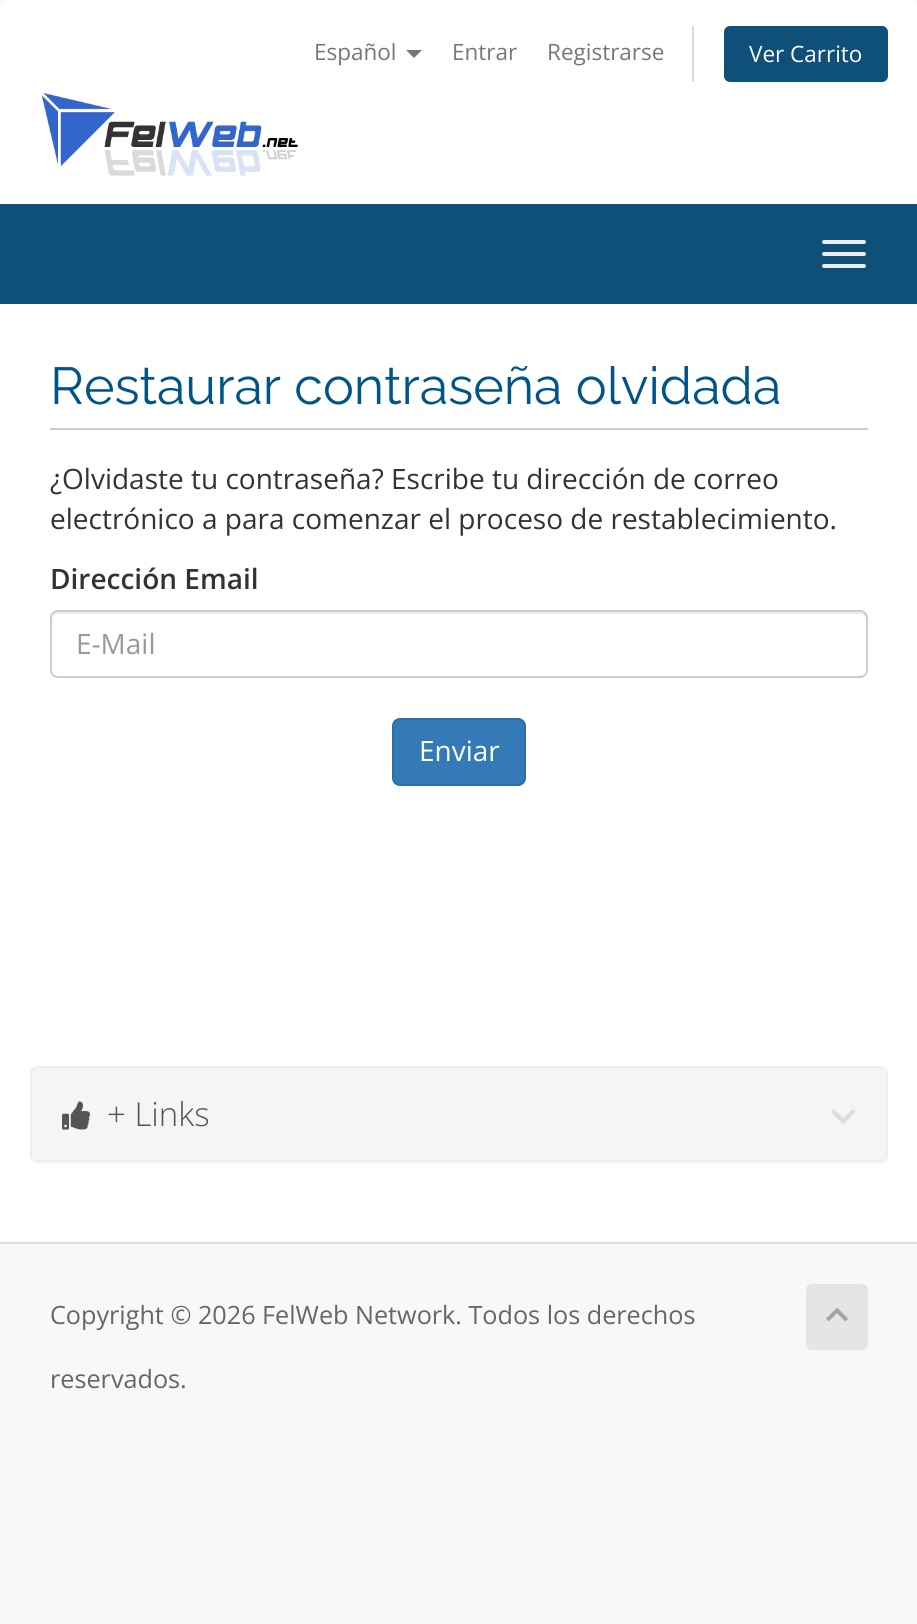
#include <cairo.h>
#include <math.h>
#include <stddef.h>

static cairo_t *ctx;

static void use_color(int r, int g, int b) {
    cairo_set_source_rgb(ctx, r / 255.0, g / 255.0, b / 255.0);
}

static void round_rect(double x, double y, double w, double h, double r) {
    cairo_new_sub_path(ctx);
    cairo_arc(ctx, x + w - r, y + h - r, r, 0, M_PI / 2);
    cairo_arc(ctx, x + r, y + h - r, r, M_PI / 2, M_PI);
    cairo_arc(ctx, x + r, y + r, r, M_PI, 1.5 * M_PI);
    cairo_arc(ctx, x + w - r, y + r, r, 1.5 * M_PI, 2 * M_PI);
    cairo_close_path(ctx);
}

static void shadow(double x, double y, double w, double h, double r, double blur, double alpha) {
    cairo_push_group_with_content(ctx, CAIRO_CONTENT_ALPHA);
    cairo_set_operator(ctx, CAIRO_OPERATOR_SOURCE);
    for (int i = 15; i >= -15 && fmin(w, h) + blur * i / 3 > 0; i -= 2) {
        double e = blur * i / 6;
        cairo_set_source_rgba(ctx, 0, 0, 0, alpha * erfc((i - 1) / 8.5) / 2);
        round_rect(x - e, y - e, w + 2 * e, h + 2 * e, fmax(0, fmin(r + e + blur * .6, fmin(w, h) / 2 + e)));
        cairo_fill(ctx);
    }
    cairo_pattern_t *soft = cairo_pop_group(ctx);
    cairo_mask(ctx, soft);
    cairo_pattern_destroy(soft);
}

static void picture(const char *path, double x, double y, double w, double h) {
    cairo_surface_t *image = cairo_image_surface_create_from_png(path);
    cairo_save(ctx);
    cairo_set_source_surface(ctx, image, x, y);
    cairo_rectangle(ctx, x, y, w, h);
    cairo_fill(ctx);
    cairo_restore(ctx);
    cairo_surface_destroy(image);
}

int main(void) {
    cairo_surface_t *surface = cairo_image_surface_create(CAIRO_FORMAT_RGB24, 917, 1624);
    ctx = cairo_create(surface);
    cairo_font_options_t *options = cairo_font_options_create();
    cairo_font_options_set_hint_metrics(options, CAIRO_HINT_METRICS_OFF);
    cairo_font_options_set_hint_style(options, CAIRO_HINT_STYLE_NONE);
    cairo_set_font_options(ctx, options);
    cairo_set_miter_limit(ctx, 4);
    use_color(248, 248, 248);
    cairo_paint(ctx);
    use_color(255, 255, 255);
    cairo_new_path(ctx);
    cairo_move_to(ctx, 10, 0);
    cairo_line_to(ctx, 908, 0);
    cairo_curve_to(ctx, 913.5, 0, 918, 4.5, 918, 10);
    cairo_line_to(ctx, 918, 204);
    cairo_line_to(ctx, 0, 204);
    cairo_line_to(ctx, 0, 10);
    cairo_curve_to(ctx, 0, 4.5, 4.5, 0, 10, 0);
    cairo_close_path(ctx);
    cairo_fill(ctx);
    cairo_select_font_face(ctx, "Open Sans", CAIRO_FONT_SLANT_NORMAL, CAIRO_FONT_WEIGHT_NORMAL);
    cairo_set_font_size(ctx, 22.5);
    use_color(119, 119, 119);
    cairo_move_to(ctx, 314, 60);
    cairo_show_text(ctx, "Español");
    cairo_new_path(ctx);
    cairo_move_to(ctx, 406, 50);
    cairo_line_to(ctx, 422, 50);
    cairo_line_to(ctx, 414, 58);
    cairo_close_path(ctx);
    cairo_fill(ctx);
    cairo_move_to(ctx, 452, 60);
    cairo_show_text(ctx, "Entrar");
    cairo_move_to(ctx, 547, 60);
    cairo_show_text(ctx, "Registrarse");
    use_color(221, 221, 221);
    cairo_rectangle(ctx, 692, 26, 2, 56);
    cairo_fill(ctx);
    use_color(14, 80, 119);
    round_rect(724, 26, 164, 56, 6);
    cairo_fill(ctx);
    use_color(255, 255, 255);
    cairo_move_to(ctx, 749, 62);
    cairo_show_text(ctx, "Ver Carrito");
    picture("img1.png", 41, 93, 257, 83);
    use_color(14, 80, 119);
    cairo_rectangle(ctx, 0, 204, 917, 100);
    cairo_fill(ctx);
    use_color(238, 238, 238);
    round_rect(822, 240, 44, 4, 2);
    cairo_fill(ctx);
    round_rect(822, 252, 44, 4, 2);
    cairo_fill(ctx);
    round_rect(822, 264, 44, 4, 2);
    cairo_fill(ctx);
    use_color(255, 255, 255);
    cairo_rectangle(ctx, 0, 304, 917, 938);
    cairo_fill(ctx);
    use_color(204, 204, 204);
    cairo_rectangle(ctx, 50, 428, 818, 2);
    cairo_fill(ctx);
    cairo_select_font_face(ctx, "Raleway", CAIRO_FONT_SLANT_NORMAL, CAIRO_FONT_WEIGHT_NORMAL);
    cairo_set_font_size(ctx, 52);
    use_color(0, 85, 136);
    cairo_move_to(ctx, 50, 404);
    cairo_show_text(ctx, "Restaurar contraseña olvidada");
    cairo_select_font_face(ctx, "Open Sans", CAIRO_FONT_SLANT_NORMAL, CAIRO_FONT_WEIGHT_NORMAL);
    cairo_set_font_size(ctx, 28);
    use_color(51, 51, 51);
    cairo_move_to(ctx, 50, 489);
    cairo_show_text(ctx, "¿Olvidaste tu contraseña? Escribe tu dirección de correo");
    cairo_move_to(ctx, 50, 529);
    cairo_show_text(ctx, "electrónico a para comenzar el proceso de restablecimiento.");
    cairo_select_font_face(ctx, "Open Sans SemiBold", CAIRO_FONT_SLANT_NORMAL, CAIRO_FONT_WEIGHT_NORMAL);
    cairo_move_to(ctx, 50, 589);
    cairo_show_text(ctx, "Dirección Email");
    use_color(236, 236, 236);
    cairo_new_path(ctx);
    cairo_move_to(ctx, 58, 614);
    cairo_line_to(ctx, 860, 614);
    cairo_curve_to(ctx, 863, 614, 866, 617, 866, 620);
    cairo_curve_to(ctx, 866, 616, 865, 612, 860, 612);
    cairo_line_to(ctx, 58, 612);
    cairo_curve_to(ctx, 53, 612, 52, 616, 52, 620);
    cairo_curve_to(ctx, 52, 617, 55, 614, 58, 614);
    cairo_close_path(ctx);
    cairo_fill(ctx);
    round_rect(51, 611, 816, 66, 7);
    use_color(204, 204, 204);
    cairo_stroke(ctx);
    cairo_select_font_face(ctx, "Open Sans", CAIRO_FONT_SLANT_NORMAL, CAIRO_FONT_WEIGHT_NORMAL);
    use_color(153, 153, 153);
    cairo_move_to(ctx, 76, 654);
    cairo_show_text(ctx, "E-Mail");
    use_color(51, 122, 183);
    round_rect(393, 719, 132, 66, 7);
    cairo_fill_preserve(ctx);
    use_color(46, 109, 164);
    cairo_stroke(ctx);
    use_color(255, 255, 255);
    cairo_move_to(ctx, 419, 761);
    cairo_show_text(ctx, "Enviar");
    use_color(0, 0, 0);
    shadow(30, 1068, 858, 96, 8, 1, 0.05);
    round_rect(31, 1067, 856, 94, 7);
    use_color(238, 238, 238);
    cairo_stroke(ctx);
    use_color(245, 245, 245);
    cairo_new_path(ctx);
    cairo_move_to(ctx, 38, 1068);
    cairo_line_to(ctx, 880, 1068);
    cairo_curve_to(ctx, 883.5, 1068, 886, 1070.5, 886, 1074);
    cairo_line_to(ctx, 886, 1160);
    cairo_line_to(ctx, 32, 1160);
    cairo_line_to(ctx, 32, 1074);
    cairo_curve_to(ctx, 32, 1070.5, 34.5, 1068, 38, 1068);
    cairo_close_path(ctx);
    cairo_fill(ctx);
    picture("img2.png", 62, 1101, 28, 29);
    cairo_select_font_face(ctx, "Open Sans Light", CAIRO_FONT_SLANT_NORMAL, CAIRO_FONT_WEIGHT_NORMAL);
    cairo_set_font_size(ctx, 33);
    use_color(85, 85, 85);
    cairo_move_to(ctx, 107, 1126);
    cairo_show_text(ctx, "+ Links");
    picture("img3.png", 831, 1109, 24, 15);
    use_color(221, 221, 221);
    cairo_rectangle(ctx, 0, 1242, 917, 2);
    cairo_fill(ctx);
    cairo_select_font_face(ctx, "Open Sans", CAIRO_FONT_SLANT_NORMAL, CAIRO_FONT_WEIGHT_NORMAL);
    cairo_set_font_size(ctx, 25.2);
    use_color(102, 102, 102);
    cairo_move_to(ctx, 50, 1324);
    cairo_show_text(ctx, "Copyright © 2026 FelWeb Network. Todos los derechos");
    cairo_move_to(ctx, 50, 1388);
    cairo_show_text(ctx, "reservados.");
    use_color(229, 229, 229);
    round_rect(806, 1284, 62, 66, 6);
    cairo_fill(ctx);
    picture("img4.png", 826, 1308, 22, 13);
    cairo_surface_write_to_png(surface, "result.png");
    cairo_font_options_destroy(options);
    cairo_destroy(ctx);
    cairo_surface_destroy(surface);
    return 0;
}
